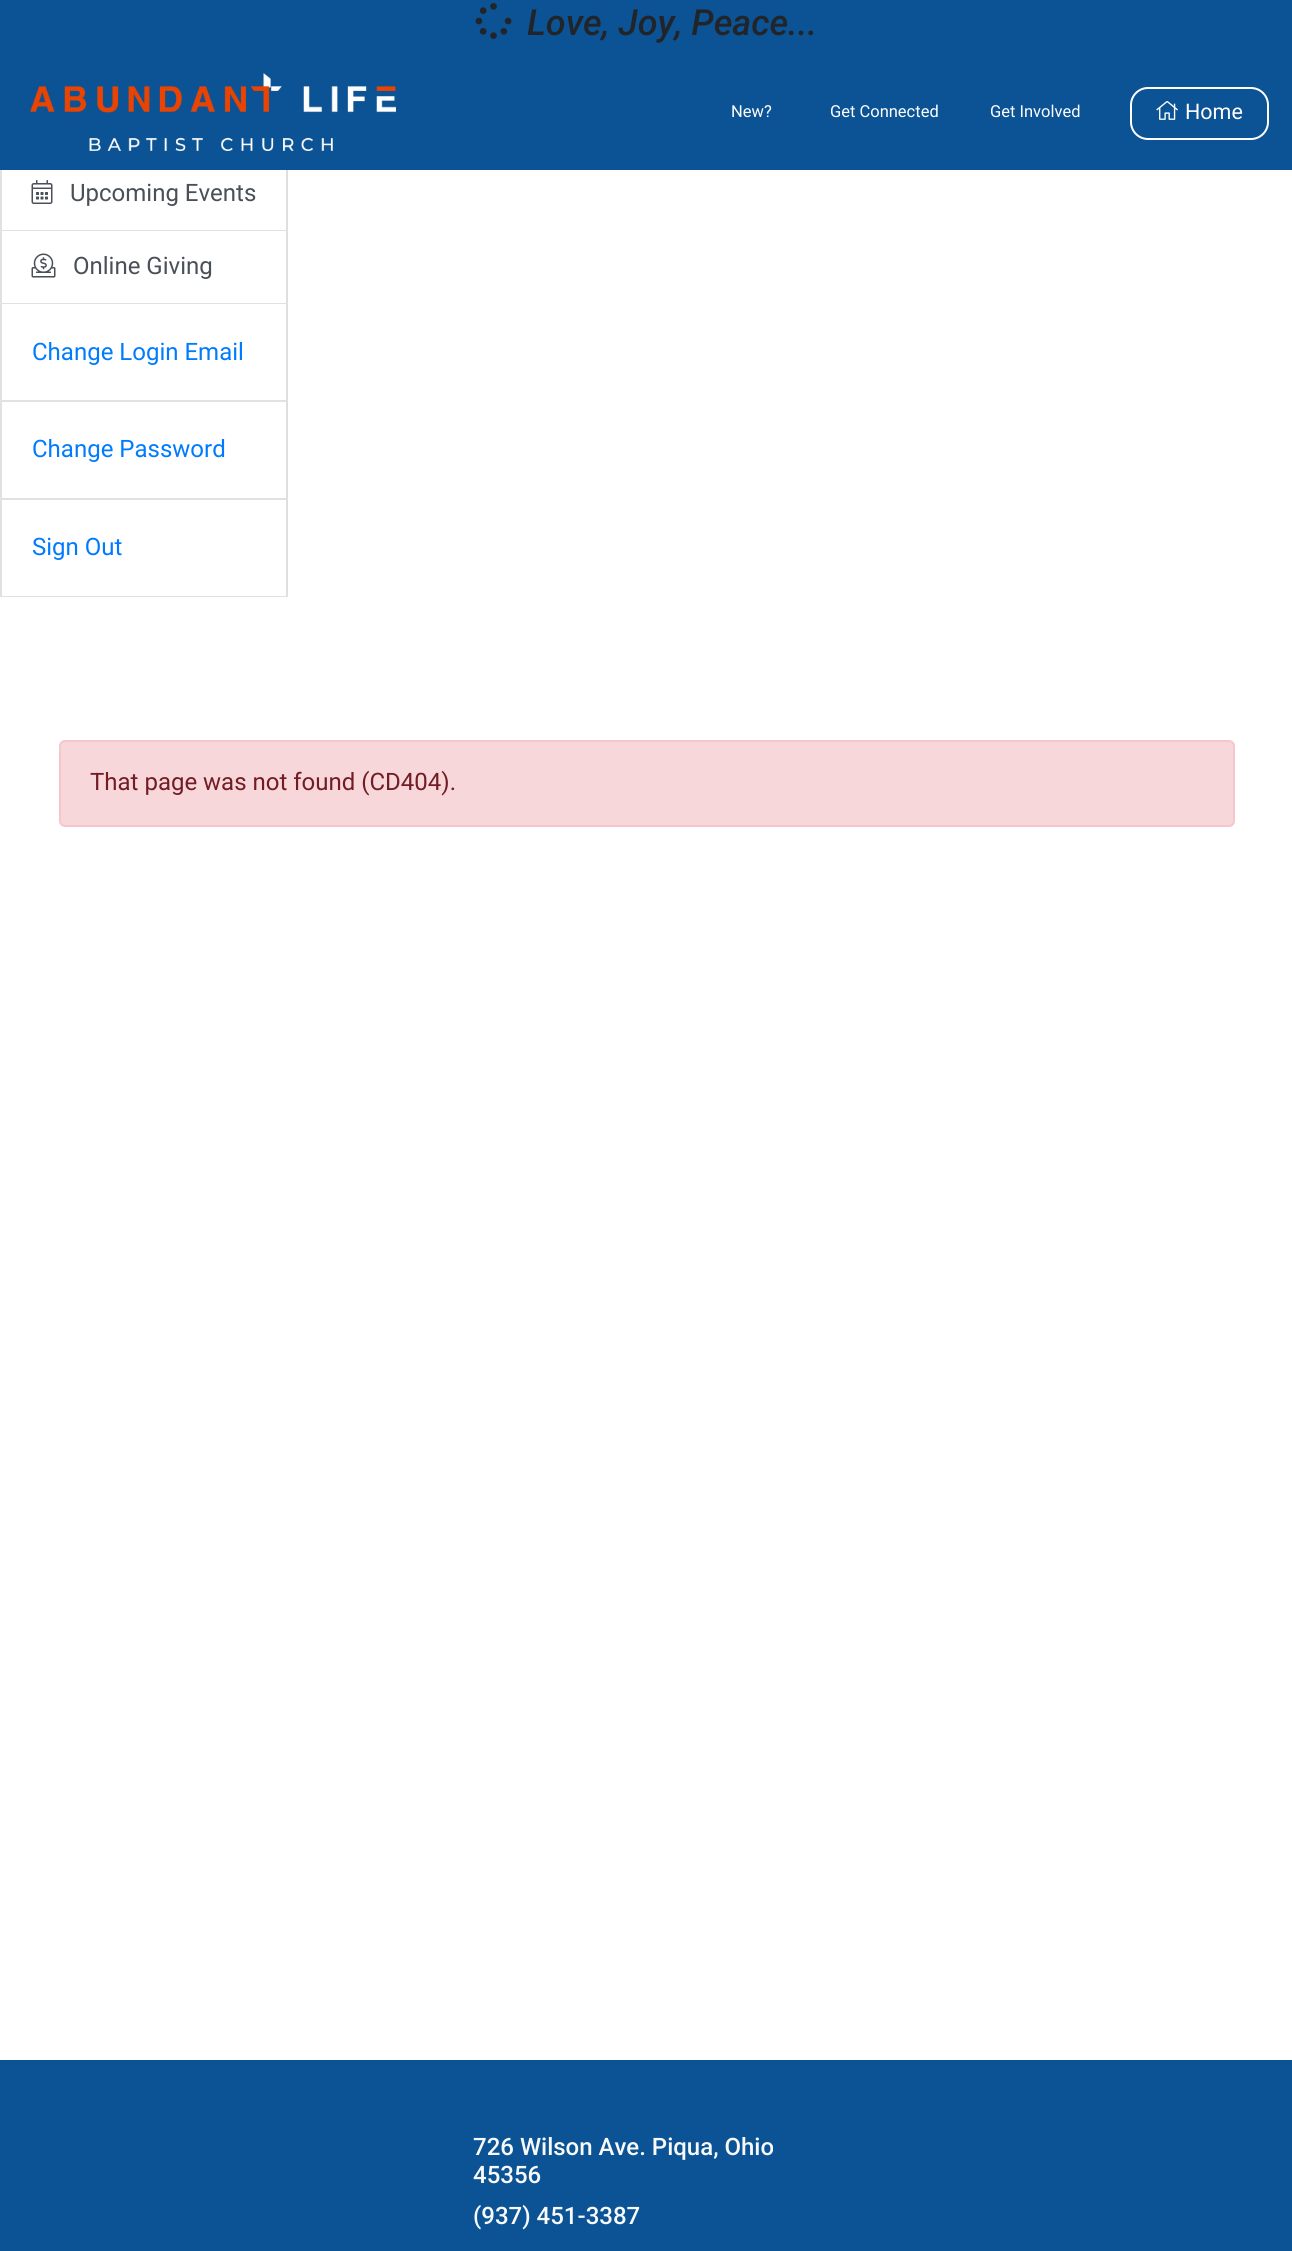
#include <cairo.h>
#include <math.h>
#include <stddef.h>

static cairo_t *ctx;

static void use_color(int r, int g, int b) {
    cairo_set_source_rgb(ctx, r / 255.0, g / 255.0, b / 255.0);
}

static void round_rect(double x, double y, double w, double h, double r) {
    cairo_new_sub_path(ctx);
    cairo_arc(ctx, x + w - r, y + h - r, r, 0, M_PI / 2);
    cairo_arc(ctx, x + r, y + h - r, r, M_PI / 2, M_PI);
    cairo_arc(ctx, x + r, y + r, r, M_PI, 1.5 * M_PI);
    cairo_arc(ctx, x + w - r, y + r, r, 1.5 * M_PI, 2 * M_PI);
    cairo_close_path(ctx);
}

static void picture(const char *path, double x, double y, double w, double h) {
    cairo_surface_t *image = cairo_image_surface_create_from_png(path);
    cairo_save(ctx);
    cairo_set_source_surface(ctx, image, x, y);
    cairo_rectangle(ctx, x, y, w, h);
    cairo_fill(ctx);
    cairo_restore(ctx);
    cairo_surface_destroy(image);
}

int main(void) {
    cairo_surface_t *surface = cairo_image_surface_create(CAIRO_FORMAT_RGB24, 1292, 2251);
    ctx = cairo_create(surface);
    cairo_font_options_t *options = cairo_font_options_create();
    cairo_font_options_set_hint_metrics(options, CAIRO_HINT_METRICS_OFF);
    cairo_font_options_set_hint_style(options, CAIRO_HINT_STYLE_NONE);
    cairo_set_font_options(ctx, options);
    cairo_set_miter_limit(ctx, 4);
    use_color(11, 83, 148);
    cairo_paint(ctx);
    picture("img1.png", 475, 3, 37, 36);
    cairo_select_font_face(ctx, "Roboto Medium", CAIRO_FONT_SLANT_ITALIC, CAIRO_FONT_WEIGHT_NORMAL);
    cairo_set_font_size(ctx, 36);
    use_color(33, 37, 41);
    cairo_move_to(ctx, 527, 35);
    cairo_show_text(ctx, "Love, Joy, Peace...");
    use_color(255, 255, 255);
    cairo_rectangle(ctx, 0, 170, 1292, 1890);
    cairo_fill(ctx);
    use_color(223, 223, 223);
    cairo_new_path(ctx);
    cairo_move_to(ctx, 288, 158);
    cairo_line_to(ctx, 288, 231);
    cairo_line_to(ctx, 286, 230);
    cairo_line_to(ctx, 286, 158);
    cairo_close_path(ctx);
    cairo_fill(ctx);
    cairo_set_source_rgba(ctx, 0, 0, 0, 0.12);
    cairo_new_path(ctx);
    cairo_move_to(ctx, 288, 231);
    cairo_line_to(ctx, 0, 231);
    cairo_line_to(ctx, 2, 230);
    cairo_line_to(ctx, 286, 230);
    cairo_close_path(ctx);
    cairo_fill(ctx);
    cairo_new_path(ctx);
    cairo_move_to(ctx, 0, 231);
    cairo_line_to(ctx, 0, 158);
    cairo_line_to(ctx, 2, 158);
    cairo_line_to(ctx, 2, 230);
    cairo_close_path(ctx);
    cairo_fill(ctx);
    use_color(11, 83, 148);
    cairo_rectangle(ctx, 0, 158, 288, 12);
    cairo_fill(ctx);
    picture("img2.png", 30, 73, 366, 78);
    cairo_select_font_face(ctx, "Roboto", CAIRO_FONT_SLANT_NORMAL, CAIRO_FONT_WEIGHT_NORMAL);
    cairo_set_font_size(ctx, 16.5);
    use_color(255, 255, 255);
    cairo_move_to(ctx, 731, 117);
    cairo_show_text(ctx, "New?");
    cairo_move_to(ctx, 830, 117);
    cairo_show_text(ctx, "Get Connected");
    cairo_move_to(ctx, 990, 117);
    cairo_show_text(ctx, "Get Involved");
    round_rect(1131, 88, 137, 51, 17);
    cairo_stroke(ctx);
    picture("img3.png", 1156, 101, 22, 19);
    cairo_set_font_size(ctx, 21.5);
    cairo_move_to(ctx, 1185, 119);
    cairo_show_text(ctx, "Home");
    picture("img4.png", 31, 180, 22, 24);
    cairo_set_font_size(ctx, 24);
    use_color(73, 80, 87);
    cairo_move_to(ctx, 70, 201);
    cairo_show_text(ctx, "Upcoming Events");
    use_color(223, 223, 223);
    cairo_new_path(ctx);
    cairo_move_to(ctx, 288, 231);
    cairo_line_to(ctx, 288, 304);
    cairo_line_to(ctx, 286, 303);
    cairo_line_to(ctx, 286, 231);
    cairo_close_path(ctx);
    cairo_fill(ctx);
    cairo_set_source_rgba(ctx, 0, 0, 0, 0.12);
    cairo_new_path(ctx);
    cairo_move_to(ctx, 288, 304);
    cairo_line_to(ctx, 0, 304);
    cairo_line_to(ctx, 2, 303);
    cairo_line_to(ctx, 286, 303);
    cairo_close_path(ctx);
    cairo_fill(ctx);
    cairo_new_path(ctx);
    cairo_move_to(ctx, 0, 304);
    cairo_line_to(ctx, 0, 231);
    cairo_line_to(ctx, 2, 231);
    cairo_line_to(ctx, 2, 303);
    cairo_close_path(ctx);
    cairo_fill(ctx);
    picture("img5.png", 31, 253, 25, 25);
    use_color(73, 80, 87);
    cairo_move_to(ctx, 73, 274);
    cairo_show_text(ctx, "Online Giving");
    use_color(223, 223, 223);
    cairo_new_path(ctx);
    cairo_move_to(ctx, 288, 304);
    cairo_line_to(ctx, 288, 402);
    cairo_line_to(ctx, 286, 400);
    cairo_line_to(ctx, 286, 304);
    cairo_close_path(ctx);
    cairo_fill(ctx);
    cairo_set_source_rgba(ctx, 0, 0, 0, 0.12);
    cairo_new_path(ctx);
    cairo_move_to(ctx, 288, 402);
    cairo_line_to(ctx, 0, 402);
    cairo_line_to(ctx, 2, 400);
    cairo_line_to(ctx, 286, 400);
    cairo_close_path(ctx);
    cairo_fill(ctx);
    cairo_new_path(ctx);
    cairo_move_to(ctx, 0, 402);
    cairo_line_to(ctx, 0, 304);
    cairo_line_to(ctx, 2, 304);
    cairo_line_to(ctx, 2, 400);
    cairo_close_path(ctx);
    cairo_fill(ctx);
    use_color(0, 123, 255);
    cairo_move_to(ctx, 32, 360);
    cairo_show_text(ctx, "Change Login Email");
    use_color(223, 223, 223);
    cairo_new_path(ctx);
    cairo_move_to(ctx, 288, 402);
    cairo_line_to(ctx, 288, 500);
    cairo_line_to(ctx, 286, 498);
    cairo_line_to(ctx, 286, 402);
    cairo_close_path(ctx);
    cairo_fill(ctx);
    cairo_set_source_rgba(ctx, 0, 0, 0, 0.12);
    cairo_new_path(ctx);
    cairo_move_to(ctx, 288, 500);
    cairo_line_to(ctx, 0, 500);
    cairo_line_to(ctx, 2, 498);
    cairo_line_to(ctx, 286, 498);
    cairo_close_path(ctx);
    cairo_fill(ctx);
    cairo_new_path(ctx);
    cairo_move_to(ctx, 0, 500);
    cairo_line_to(ctx, 0, 402);
    cairo_line_to(ctx, 2, 402);
    cairo_line_to(ctx, 2, 498);
    cairo_close_path(ctx);
    cairo_fill(ctx);
    use_color(0, 123, 255);
    cairo_move_to(ctx, 32, 457);
    cairo_show_text(ctx, "Change Password");
    use_color(223, 223, 223);
    cairo_new_path(ctx);
    cairo_move_to(ctx, 288, 500);
    cairo_line_to(ctx, 288, 597);
    cairo_line_to(ctx, 286, 596);
    cairo_line_to(ctx, 286, 500);
    cairo_close_path(ctx);
    cairo_fill(ctx);
    cairo_set_source_rgba(ctx, 0, 0, 0, 0.12);
    cairo_new_path(ctx);
    cairo_move_to(ctx, 288, 597);
    cairo_line_to(ctx, 0, 597);
    cairo_line_to(ctx, 2, 596);
    cairo_line_to(ctx, 286, 596);
    cairo_close_path(ctx);
    cairo_fill(ctx);
    cairo_new_path(ctx);
    cairo_move_to(ctx, 0, 597);
    cairo_line_to(ctx, 0, 500);
    cairo_line_to(ctx, 2, 500);
    cairo_line_to(ctx, 2, 596);
    cairo_close_path(ctx);
    cairo_fill(ctx);
    use_color(0, 123, 255);
    cairo_move_to(ctx, 32, 555);
    cairo_show_text(ctx, "Sign Out");
    use_color(248, 215, 218);
    round_rect(60, 741, 1174, 85, 5);
    cairo_fill_preserve(ctx);
    use_color(245, 198, 203);
    cairo_stroke(ctx);
    use_color(114, 28, 36);
    cairo_move_to(ctx, 90, 790);
    cairo_show_text(ctx, "That page was not found (CD404).");
    cairo_select_font_face(ctx, "Roboto Medium", CAIRO_FONT_SLANT_NORMAL, CAIRO_FONT_WEIGHT_NORMAL);
    use_color(248, 249, 250);
    cairo_move_to(ctx, 473, 2155);
    cairo_show_text(ctx, "726 Wilson Ave. Piqua, Ohio");
    cairo_move_to(ctx, 473, 2183);
    cairo_show_text(ctx, "45356");
    cairo_move_to(ctx, 473, 2224);
    cairo_show_text(ctx, "(937) 451-3387");
    cairo_surface_write_to_png(surface, "result.png");
    cairo_font_options_destroy(options);
    cairo_destroy(ctx);
    cairo_surface_destroy(surface);
    return 0;
}
